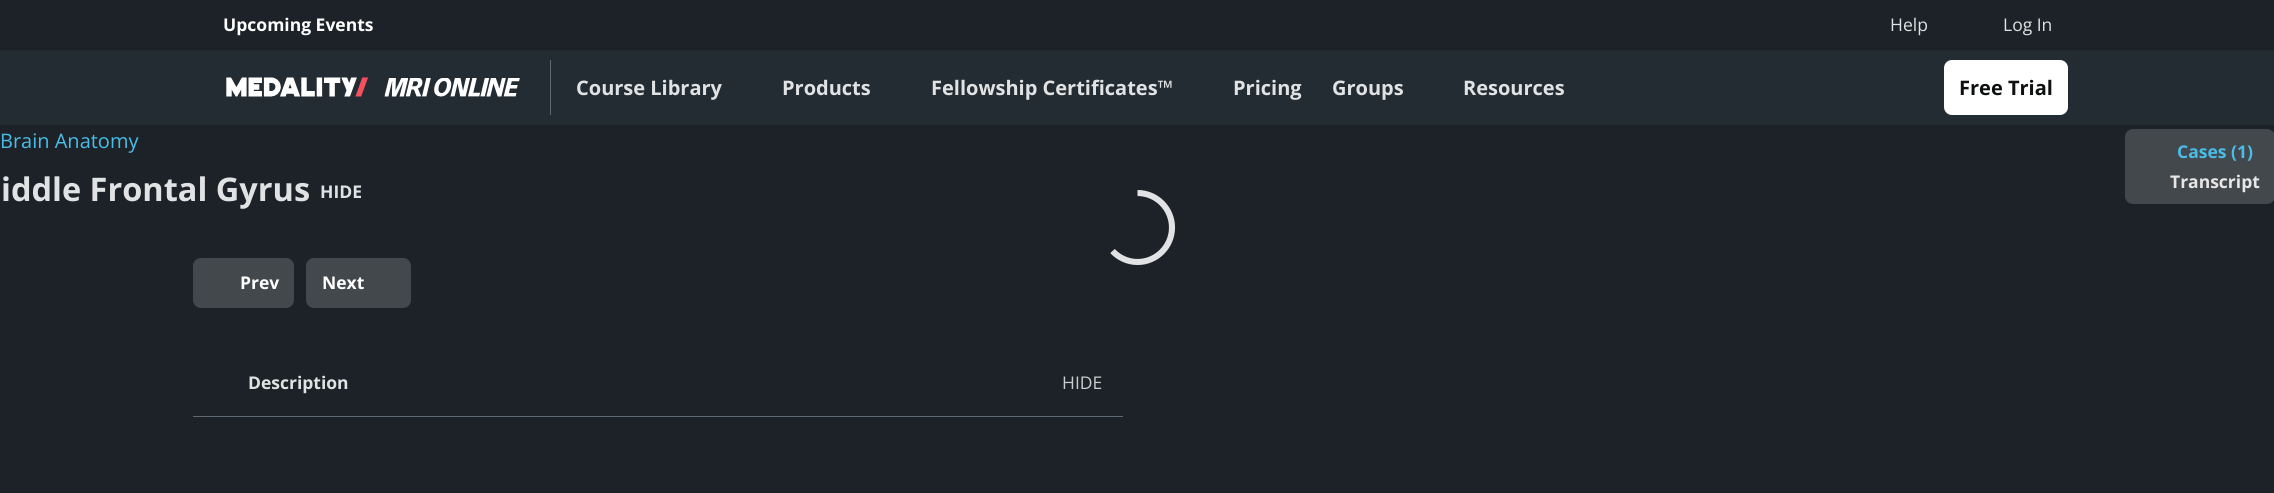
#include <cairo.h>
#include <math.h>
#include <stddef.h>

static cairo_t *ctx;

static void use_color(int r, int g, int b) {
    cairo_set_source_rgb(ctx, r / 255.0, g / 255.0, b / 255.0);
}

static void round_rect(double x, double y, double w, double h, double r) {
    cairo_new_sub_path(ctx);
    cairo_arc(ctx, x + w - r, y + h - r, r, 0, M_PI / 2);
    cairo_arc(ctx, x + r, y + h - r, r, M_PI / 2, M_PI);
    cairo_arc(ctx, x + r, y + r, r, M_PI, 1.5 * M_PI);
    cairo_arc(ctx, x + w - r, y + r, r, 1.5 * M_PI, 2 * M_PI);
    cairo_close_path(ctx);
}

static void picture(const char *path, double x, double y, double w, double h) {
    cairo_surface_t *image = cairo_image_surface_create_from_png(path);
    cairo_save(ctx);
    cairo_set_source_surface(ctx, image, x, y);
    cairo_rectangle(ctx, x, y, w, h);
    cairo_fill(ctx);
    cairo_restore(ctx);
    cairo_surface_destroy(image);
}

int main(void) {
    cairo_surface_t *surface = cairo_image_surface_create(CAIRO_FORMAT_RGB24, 2274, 493);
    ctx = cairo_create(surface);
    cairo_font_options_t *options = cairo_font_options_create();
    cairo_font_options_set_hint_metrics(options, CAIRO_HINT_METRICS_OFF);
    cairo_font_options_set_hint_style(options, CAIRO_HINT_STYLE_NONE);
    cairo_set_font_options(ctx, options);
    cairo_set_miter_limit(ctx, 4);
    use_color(28, 34, 39);
    cairo_paint(ctx);
    use_color(36, 44, 51);
    cairo_rectangle(ctx, 0, 50, 2274, 75);
    cairo_fill(ctx);
    cairo_select_font_face(ctx, "Open Sans", CAIRO_FONT_SLANT_NORMAL, CAIRO_FONT_WEIGHT_BOLD);
    cairo_set_font_size(ctx, 17.5);
    use_color(255, 255, 255);
    cairo_move_to(ctx, 223, 31);
    cairo_show_text(ctx, "Upcoming Events");
    cairo_select_font_face(ctx, "Open Sans", CAIRO_FONT_SLANT_NORMAL, CAIRO_FONT_WEIGHT_NORMAL);
    use_color(225, 226, 227);
    cairo_move_to(ctx, 1890, 31);
    cairo_show_text(ctx, "Help");
    cairo_move_to(ctx, 2003, 31);
    cairo_show_text(ctx, "Log In");
    use_color(95, 105, 115);
    cairo_rectangle(ctx, 550, 60, 1, 55);
    cairo_fill(ctx);
    picture("img1.png", 226, 77, 294, 20);
    cairo_select_font_face(ctx, "Open Sans", CAIRO_FONT_SLANT_NORMAL, CAIRO_FONT_WEIGHT_BOLD);
    cairo_set_font_size(ctx, 20);
    use_color(225, 226, 227);
    cairo_move_to(ctx, 576, 95);
    cairo_show_text(ctx, "Course Library");
    cairo_move_to(ctx, 782, 95);
    cairo_show_text(ctx, "Products");
    cairo_move_to(ctx, 931, 95);
    cairo_show_text(ctx, "Fellowship Certificates™");
    cairo_move_to(ctx, 1233, 95);
    cairo_show_text(ctx, "Pricing");
    cairo_move_to(ctx, 1332, 95);
    cairo_show_text(ctx, "Groups");
    cairo_move_to(ctx, 1463, 95);
    cairo_show_text(ctx, "Resources");
    use_color(255, 255, 255);
    round_rect(1944, 60, 124, 55, 8);
    cairo_fill(ctx);
    use_color(15, 16, 16);
    cairo_move_to(ctx, 1959, 95);
    cairo_show_text(ctx, "Free Trial");
    cairo_select_font_face(ctx, "Open Sans", CAIRO_FONT_SLANT_NORMAL, CAIRO_FONT_WEIGHT_NORMAL);
    use_color(74, 188, 232);
    cairo_move_to(ctx, 0, 148);
    cairo_show_text(ctx, "Brain Anatomy");
    cairo_select_font_face(ctx, "Open Sans", CAIRO_FONT_SLANT_NORMAL, CAIRO_FONT_WEIGHT_BOLD);
    cairo_set_font_size(ctx, 32.5);
    use_color(225, 226, 227);
    cairo_move_to(ctx, 1, 201);
    cairo_show_text(ctx, "iddle Frontal Gyrus");
    cairo_set_font_size(ctx, 17.5);
    cairo_move_to(ctx, 320, 198);
    cairo_show_text(ctx, "HIDE");
    use_color(67, 72, 76);
    round_rect(2125, 129, 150, 75, 8);
    cairo_fill(ctx);
    use_color(74, 188, 232);
    cairo_move_to(ctx, 2177, 158);
    cairo_show_text(ctx, "Cases (1)");
    use_color(231, 231, 232);
    cairo_move_to(ctx, 2170, 188);
    cairo_show_text(ctx, "Transcript");
    cairo_new_path(ctx);
    cairo_move_to(ctx, 1137.5, 193);
    cairo_curve_to(ctx, 1156.5, 193, 1172, 208.5, 1172, 227.5);
    cairo_curve_to(ctx, 1172, 246.5, 1156.5, 262, 1137.5, 262);
    cairo_curve_to(ctx, 1127.5, 262, 1118.5, 257.5, 1112.5, 251);
    use_color(225, 226, 227);
    cairo_set_line_width(ctx, 6.1);
    cairo_stroke(ctx);
    use_color(67, 72, 76);
    round_rect(193, 258, 101, 50, 8);
    cairo_fill(ctx);
    use_color(255, 255, 255);
    cairo_move_to(ctx, 240, 289);
    cairo_show_text(ctx, "Prev");
    use_color(67, 72, 76);
    round_rect(306, 258, 105, 50, 8);
    cairo_fill(ctx);
    use_color(255, 255, 255);
    cairo_move_to(ctx, 322, 289);
    cairo_show_text(ctx, "Next");
    use_color(95, 105, 115);
    cairo_rectangle(ctx, 193, 416, 930, 1);
    cairo_fill(ctx);
    use_color(225, 226, 227);
    cairo_move_to(ctx, 248, 389);
    cairo_show_text(ctx, "Description");
    cairo_select_font_face(ctx, "Open Sans", CAIRO_FONT_SLANT_NORMAL, CAIRO_FONT_WEIGHT_NORMAL);
    use_color(203, 204, 205);
    cairo_move_to(ctx, 1062, 389);
    cairo_show_text(ctx, "HIDE");
    cairo_surface_write_to_png(surface, "result.png");
    cairo_font_options_destroy(options);
    cairo_destroy(ctx);
    cairo_surface_destroy(surface);
    return 0;
}
